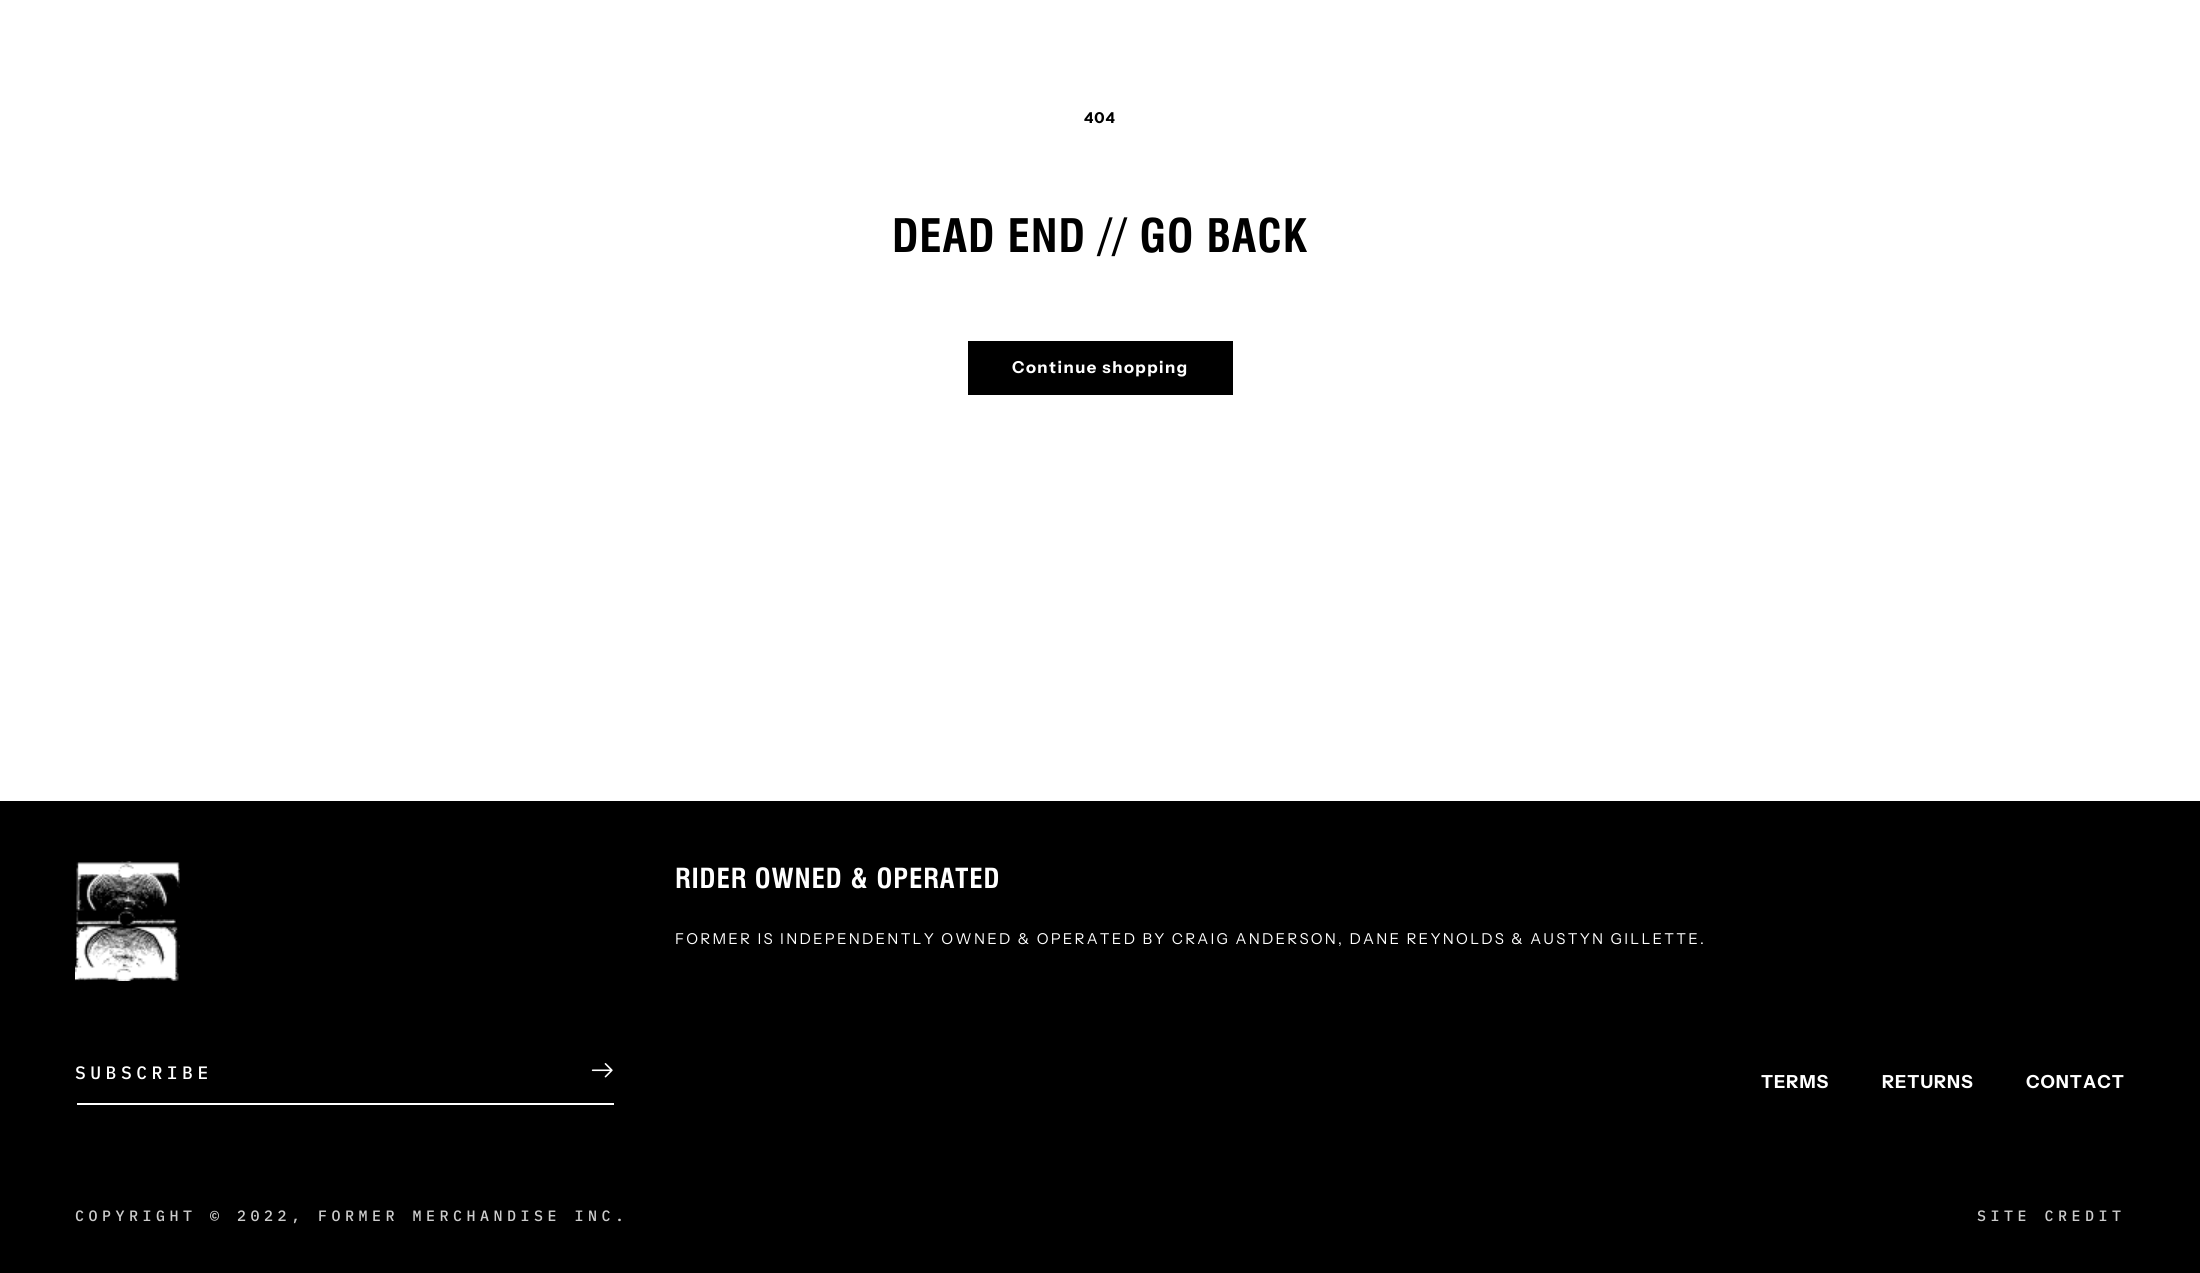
#include <cairo.h>
#include <math.h>
#include <stddef.h>

static cairo_t *ctx;

static void use_color(int r, int g, int b) {
    cairo_set_source_rgb(ctx, r / 255.0, g / 255.0, b / 255.0);
}

static void spaced_text(double x, double y, const char *s, double letter, double word) {
    cairo_move_to(ctx, x, y);
    while (*s) {
        char ch[5] = {0};
        int n = 0;
        do ch[n++] = *s++; while ((*s & 0xC0) == 0x80);
        cairo_show_text(ctx, ch);
        cairo_rel_move_to(ctx, letter + word * (*ch == ' '), 0);
    }
}

static void picture(const char *path, double x, double y, double w, double h) {
    cairo_surface_t *image = cairo_image_surface_create_from_png(path);
    cairo_save(ctx);
    cairo_set_source_surface(ctx, image, x, y);
    cairo_rectangle(ctx, x, y, w, h);
    cairo_fill(ctx);
    cairo_restore(ctx);
    cairo_surface_destroy(image);
}

int main(void) {
    cairo_surface_t *surface = cairo_image_surface_create(CAIRO_FORMAT_RGB24, 2200, 1273);
    ctx = cairo_create(surface);
    cairo_font_options_t *options = cairo_font_options_create();
    cairo_font_options_set_hint_metrics(options, CAIRO_HINT_METRICS_OFF);
    cairo_font_options_set_hint_style(options, CAIRO_HINT_STYLE_NONE);
    cairo_set_font_options(ctx, options);
    cairo_set_miter_limit(ctx, 4);
    use_color(255, 255, 255);
    cairo_paint(ctx);
    cairo_select_font_face(ctx, "Instrument Sans", CAIRO_FONT_SLANT_NORMAL, CAIRO_FONT_WEIGHT_BOLD);
    cairo_set_font_size(ctx, 15);
    use_color(0, 0, 0);
    spaced_text(1084, 123, "404", 1, 0);
    cairo_select_font_face(ctx, "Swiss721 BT", CAIRO_FONT_SLANT_NORMAL, CAIRO_FONT_WEIGHT_BOLD);
    cairo_set_font_size(ctx, 45);
    spaced_text(892, 252, "DEAD END // GO BACK", 0.9, 0);
    cairo_rectangle(ctx, 968, 341, 265, 54);
    cairo_fill(ctx);
    cairo_select_font_face(ctx, "Instrument Sans", CAIRO_FONT_SLANT_NORMAL, CAIRO_FONT_WEIGHT_BOLD);
    cairo_set_font_size(ctx, 16.5);
    use_color(255, 255, 255);
    spaced_text(1012, 373, "Continue shopping", 1.5, 0);
    use_color(0, 0, 0);
    cairo_rectangle(ctx, 0, 801, 2200, 472);
    cairo_fill(ctx);
    picture("img1.png", 75, 861, 105, 120);
    cairo_select_font_face(ctx, "Swiss721 BT", CAIRO_FONT_SLANT_NORMAL, CAIRO_FONT_WEIGHT_BOLD);
    cairo_set_font_size(ctx, 27);
    use_color(255, 255, 255);
    spaced_text(675, 888, "RIDER OWNED & OPERATED", 0.9, 0);
    cairo_select_font_face(ctx, "Instrument Sans", CAIRO_FONT_SLANT_NORMAL, CAIRO_FONT_WEIGHT_NORMAL);
    cairo_set_font_size(ctx, 15);
    spaced_text(675, 944, "FORMER IS INDEPENDENTLY OWNED & OPERATED BY CRAIG ANDERSON, DANE REYNOLDS & AUSTYN GILLETTE.", 2.25, 0);
    cairo_select_font_face(ctx, "IBM Plex Mono Medium", CAIRO_FONT_SLANT_NORMAL, CAIRO_FONT_WEIGHT_NORMAL);
    cairo_set_font_size(ctx, 18);
    spaced_text(75, 1079, "SUBSCRIBE", 4.5, 0);
    picture("img2.png", 591, 1063, 22, 15);
    cairo_rectangle(ctx, 77, 1103, 537, 2);
    cairo_fill(ctx);
    cairo_select_font_face(ctx, "Instrument Sans", CAIRO_FONT_SLANT_NORMAL, CAIRO_FONT_WEIGHT_BOLD);
    spaced_text(1761, 1088, "TERMS", 1, 0);
    spaced_text(1882, 1088, "RETURNS", 1, 0);
    spaced_text(2026, 1088, "CONTACT", 1, 0);
    cairo_select_font_face(ctx, "IBM Plex Mono Medium", CAIRO_FONT_SLANT_NORMAL, CAIRO_FONT_WEIGHT_NORMAL);
    cairo_set_font_size(ctx, 15);
    use_color(204, 204, 204);
    spaced_text(75, 1221, "COPYRIGHT © 2022, FORMER MERCHANDISE INC.", 4.5, 0);
    spaced_text(1977, 1221, "SITE CREDIT", 4.5, 0);
    cairo_surface_write_to_png(surface, "result.png");
    cairo_font_options_destroy(options);
    cairo_destroy(ctx);
    cairo_surface_destroy(surface);
    return 0;
}
